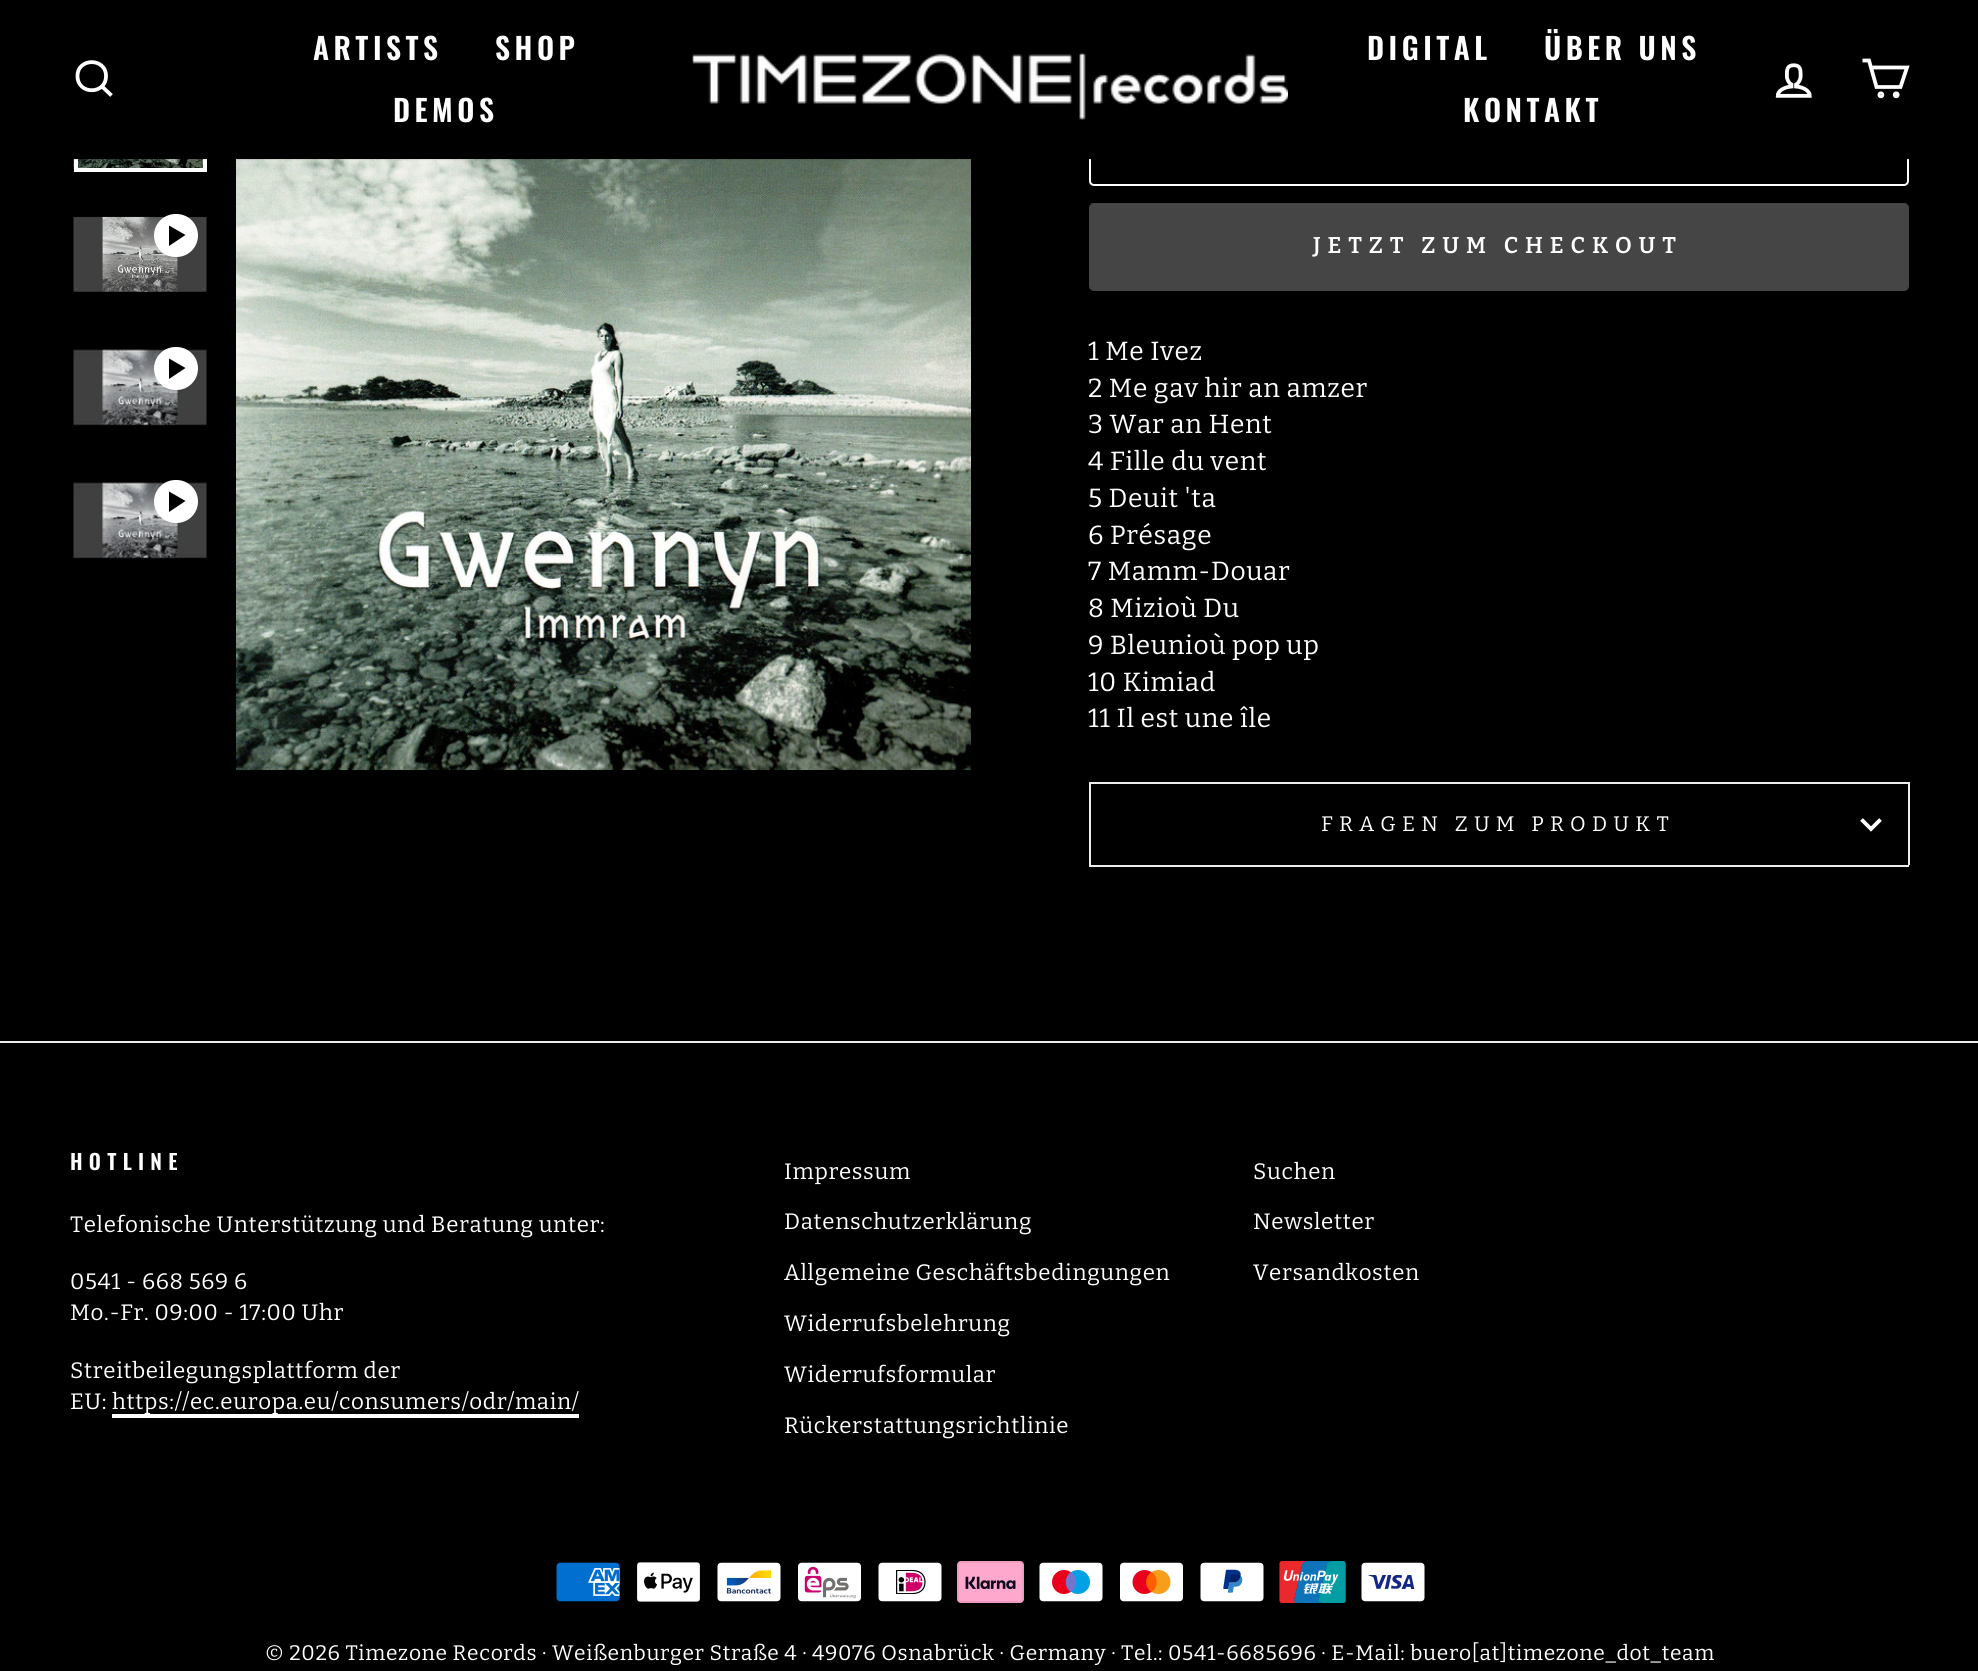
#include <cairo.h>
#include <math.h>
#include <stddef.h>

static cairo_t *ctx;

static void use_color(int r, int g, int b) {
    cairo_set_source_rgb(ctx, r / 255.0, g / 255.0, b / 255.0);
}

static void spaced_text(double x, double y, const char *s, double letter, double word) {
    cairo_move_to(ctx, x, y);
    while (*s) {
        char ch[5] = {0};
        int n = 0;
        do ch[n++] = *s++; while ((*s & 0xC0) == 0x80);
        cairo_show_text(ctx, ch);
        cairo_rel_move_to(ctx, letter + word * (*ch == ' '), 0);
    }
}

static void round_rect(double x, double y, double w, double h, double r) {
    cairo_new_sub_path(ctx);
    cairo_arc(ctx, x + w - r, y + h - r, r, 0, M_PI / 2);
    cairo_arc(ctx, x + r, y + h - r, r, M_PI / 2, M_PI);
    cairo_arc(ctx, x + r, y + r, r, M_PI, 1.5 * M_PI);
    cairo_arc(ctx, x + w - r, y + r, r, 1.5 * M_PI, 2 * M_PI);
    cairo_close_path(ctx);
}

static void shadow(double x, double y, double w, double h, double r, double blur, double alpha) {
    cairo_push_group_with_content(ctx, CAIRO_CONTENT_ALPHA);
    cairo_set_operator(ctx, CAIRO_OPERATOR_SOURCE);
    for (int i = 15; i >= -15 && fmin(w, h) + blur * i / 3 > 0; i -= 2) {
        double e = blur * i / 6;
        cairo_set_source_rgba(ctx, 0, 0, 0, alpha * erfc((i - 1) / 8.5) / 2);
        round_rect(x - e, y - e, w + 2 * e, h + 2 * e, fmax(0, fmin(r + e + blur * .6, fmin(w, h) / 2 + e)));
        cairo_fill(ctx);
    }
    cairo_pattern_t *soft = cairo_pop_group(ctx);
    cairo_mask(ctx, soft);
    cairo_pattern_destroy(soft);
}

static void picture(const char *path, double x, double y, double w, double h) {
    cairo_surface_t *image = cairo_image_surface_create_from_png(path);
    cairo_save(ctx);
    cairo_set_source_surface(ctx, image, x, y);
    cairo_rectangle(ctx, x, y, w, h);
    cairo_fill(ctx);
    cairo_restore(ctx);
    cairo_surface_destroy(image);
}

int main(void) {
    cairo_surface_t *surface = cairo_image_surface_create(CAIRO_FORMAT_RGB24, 1978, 1671);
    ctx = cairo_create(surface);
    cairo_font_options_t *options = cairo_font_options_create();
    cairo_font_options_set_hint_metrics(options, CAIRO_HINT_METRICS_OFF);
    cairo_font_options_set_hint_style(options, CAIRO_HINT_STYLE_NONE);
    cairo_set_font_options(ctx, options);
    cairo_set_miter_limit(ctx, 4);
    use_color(0, 0, 0);
    cairo_paint(ctx);
    picture("img3.png", 73, 159, 130, 13);
    cairo_rectangle(ctx, 76, 41, 129, 129);
    use_color(255, 255, 255);
    cairo_set_line_width(ctx, 4);
    cairo_stroke(ctx);
    picture("img6.png", 236, 159, 735, 611);
    round_rect(1090, 99, 818, 86, 4);
    cairo_set_line_width(ctx, 2);
    cairo_stroke(ctx);
    use_color(0, 0, 0);
    shadow(0, 0, 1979, 159, 0, 1, 0.2);
    use_color(0, 0, 0);
    cairo_rectangle(ctx, 74, 39, 1835, 120);
    cairo_fill(ctx);
    cairo_new_path(ctx);
    cairo_move_to(ctx, 106, 76);
    cairo_curve_to(ctx, 106, 95, 77.5, 95, 77.5, 76);
    cairo_curve_to(ctx, 77.5, 57.5, 106, 57.5, 106, 76);
    cairo_close_path(ctx);
    cairo_move_to(ctx, 111.5, 95.5);
    cairo_line_to(ctx, 102, 86.5);
    use_color(255, 255, 255);
    cairo_set_line_width(ctx, 3.8);
    cairo_stroke(ctx);
    cairo_select_font_face(ctx, "Oswald SemiBold", CAIRO_FONT_SLANT_NORMAL, CAIRO_FONT_WEIGHT_NORMAL);
    cairo_set_font_size(ctx, 29.75);
    spaced_text(313, 60, "ARTISTS", 4.5, 0);
    spaced_text(495, 60, "SHOP", 4.5, 0);
    spaced_text(393, 122, "DEMOS", 4.5, 0);
    picture("img1.png", 692, 52, 596, 68);
    spaced_text(1367, 60, "DIGITAL", 4.5, 0);
    spaced_text(1544, 60, "ÜBER UNS", 4.5, 0);
    spaced_text(1463, 122, "KONTAKT", 4.5, 0);
    picture("img2.png", 1775, 63, 37, 35);
    cairo_new_path(ctx);
    cairo_move_to(ctx, 1871, 67.5);
    cairo_line_to(ctx, 1907, 67.5);
    cairo_line_to(ctx, 1900.5, 87);
    cairo_line_to(ctx, 1876.5, 87);
    cairo_line_to(ctx, 1869, 60.5);
    cairo_line_to(ctx, 1862.5, 60.5);
    cairo_stroke(ctx);
    cairo_arc(ctx, 1880.9, 94.8, 1.5, 0, 2 * M_PI);
    cairo_stroke(ctx);
    cairo_arc(ctx, 1896.2, 94.8, 1.5, 0, 2 * M_PI);
    cairo_fill_preserve(ctx);
    cairo_stroke(ctx);
    picture("img4.png", 73, 216, 134, 76);
    round_rect(154, 214, 44, 43, 21.5);
    cairo_fill(ctx);
    use_color(0, 0, 0);
    cairo_new_path(ctx);
    cairo_move_to(ctx, 169, 225.5);
    cairo_line_to(ctx, 169, 246);
    cairo_line_to(ctx, 185.5, 235);
    cairo_close_path(ctx);
    cairo_fill(ctx);
    picture("img5.png", 73, 349, 134, 77);
    use_color(255, 255, 255);
    round_rect(154, 347, 44, 43, 21.5);
    cairo_fill(ctx);
    use_color(0, 0, 0);
    cairo_new_path(ctx);
    cairo_move_to(ctx, 169, 358.5);
    cairo_line_to(ctx, 169, 379);
    cairo_line_to(ctx, 185.5, 368);
    cairo_close_path(ctx);
    cairo_fill(ctx);
    picture("img5.png", 73, 482, 134, 77);
    use_color(255, 255, 255);
    round_rect(154, 480, 44, 43, 21.5);
    cairo_fill(ctx);
    use_color(0, 0, 0);
    cairo_new_path(ctx);
    cairo_move_to(ctx, 169, 491.5);
    cairo_line_to(ctx, 169, 512);
    cairo_line_to(ctx, 185.5, 501);
    cairo_close_path(ctx);
    cairo_fill(ctx);
    use_color(69, 69, 69);
    round_rect(1089, 203, 820, 88, 5);
    cairo_fill(ctx);
    cairo_select_font_face(ctx, "Bitter SemiBold", CAIRO_FONT_SLANT_NORMAL, CAIRO_FONT_WEIGHT_NORMAL);
    cairo_set_font_size(ctx, 22.75);
    use_color(255, 255, 255);
    spaced_text(1313, 253, "JETZT ZUM CHECKOUT", 6.8, 0);
    cairo_select_font_face(ctx, "Bitter", CAIRO_FONT_SLANT_NORMAL, CAIRO_FONT_WEIGHT_NORMAL);
    cairo_set_font_size(ctx, 26.25);
    spaced_text(1088, 360, "1 Me Ivez", 0.66, 0);
    spaced_text(1088, 397, "2 Me gav hir an amzer", 0.66, 0);
    spaced_text(1088, 433, "3 War an Hent", 0.66, 0);
    spaced_text(1088, 470, "4 Fille du vent", 0.66, 0);
    spaced_text(1088, 507, "5 Deuit 'ta", 0.66, 0);
    spaced_text(1088, 544, "6 Présage", 0.66, 0);
    spaced_text(1088, 580, "7 Mamm-Douar", 0.66, 0);
    spaced_text(1088, 617, "8 Mizioù Du", 0.66, 0);
    spaced_text(1088, 654, "9 Bleunioù pop up", 0.66, 0);
    spaced_text(1088, 691, "10 Kimiad", 0.66, 0);
    spaced_text(1088, 727, "11 Il est une île", 0.66, 0);
    use_color(237, 237, 237);
    cairo_rectangle(ctx, 1089, 865, 820, 2);
    cairo_fill(ctx);
    cairo_rectangle(ctx, 1089, 782, 820, 2);
    cairo_fill(ctx);
    cairo_rectangle(ctx, 1908, 782, 2, 83);
    cairo_fill(ctx);
    cairo_rectangle(ctx, 1089, 782, 2, 83);
    cairo_fill(ctx);
    cairo_set_font_size(ctx, 21);
    use_color(255, 255, 255);
    spaced_text(1321, 831, "FRAGEN ZUM PRODUKT", 6.25, 0);
    cairo_new_path(ctx);
    cairo_move_to(ctx, 1861.5, 819.5);
    cairo_line_to(ctx, 1871, 829);
    cairo_line_to(ctx, 1880.5, 819.5);
    cairo_stroke(ctx);
    use_color(237, 237, 237);
    cairo_rectangle(ctx, 0, 1041, 1978, 2);
    cairo_fill(ctx);
    cairo_select_font_face(ctx, "Oswald SemiBold", CAIRO_FONT_SLANT_NORMAL, CAIRO_FONT_WEIGHT_NORMAL);
    use_color(255, 255, 255);
    spaced_text(70, 1170, "HOTLINE", 6.25, 0);
    cairo_select_font_face(ctx, "Bitter", CAIRO_FONT_SLANT_NORMAL, CAIRO_FONT_WEIGHT_NORMAL);
    cairo_set_font_size(ctx, 22.3);
    spaced_text(70, 1232, "Telefonische Unterstützung und Beratung unter:", 0.66, 0);
    spaced_text(70, 1289, "0541 - 668 569 6", 0.66, 0);
    spaced_text(70, 1320, "Mo.-Fr. 09:00 - 17:00 Uhr", 0.66, 0);
    spaced_text(70, 1378, "Streitbeilegungsplattform der", 0.66, 0);
    spaced_text(70, 1409, "EU:", 0.66, 0);
    cairo_rectangle(ctx, 112, 1414, 467, 4);
    cairo_fill(ctx);
    spaced_text(112, 1409, "https://ec.europa.eu/consumers/odr/main/", 0.66, 0);
    spaced_text(784, 1179, "Impressum", 0.66, 0);
    spaced_text(784, 1229, "Datenschutzerklärung", 0.66, 0);
    spaced_text(784, 1280, "Allgemeine Geschäftsbedingungen", 0.66, 0);
    spaced_text(784, 1331, "Widerrufsbelehrung", 0.66, 0);
    spaced_text(784, 1382, "Widerrufsformular", 0.66, 0);
    spaced_text(784, 1433, "Rückerstattungsrichtlinie", 0.66, 0);
    spaced_text(1253, 1179, "Suchen", 0.66, 0);
    spaced_text(1253, 1229, "Newsletter", 0.66, 0);
    spaced_text(1253, 1280, "Versandkosten", 0.66, 0);
    picture("img7.png", 556, 1562, 64, 40);
    picture("img8.png", 637, 1562, 63, 40);
    picture("img9.png", 717, 1562, 64, 40);
    picture("img10.png", 798, 1562, 63, 40);
    picture("img11.png", 878, 1562, 64, 40);
    picture("img12.png", 957, 1561, 67, 42);
    picture("img13.png", 1039, 1562, 64, 40);
    picture("img14.png", 1120, 1562, 63, 40);
    picture("img15.png", 1200, 1562, 64, 40);
    picture("img16.png", 1279, 1561, 67, 42);
    picture("img17.png", 1361, 1562, 64, 40);
    cairo_set_font_size(ctx, 21);
    spaced_text(265, 1660, "© 2026 Timezone Records · Weißenburger Straße 4 · 49076 Osnabrück · Germany · Tel.: 0541-6685696 · E-Mail: buero[at]timezone_dot_team", 0.66, 0);
    cairo_surface_write_to_png(surface, "result.png");
    cairo_font_options_destroy(options);
    cairo_destroy(ctx);
    cairo_surface_destroy(surface);
    return 0;
}
